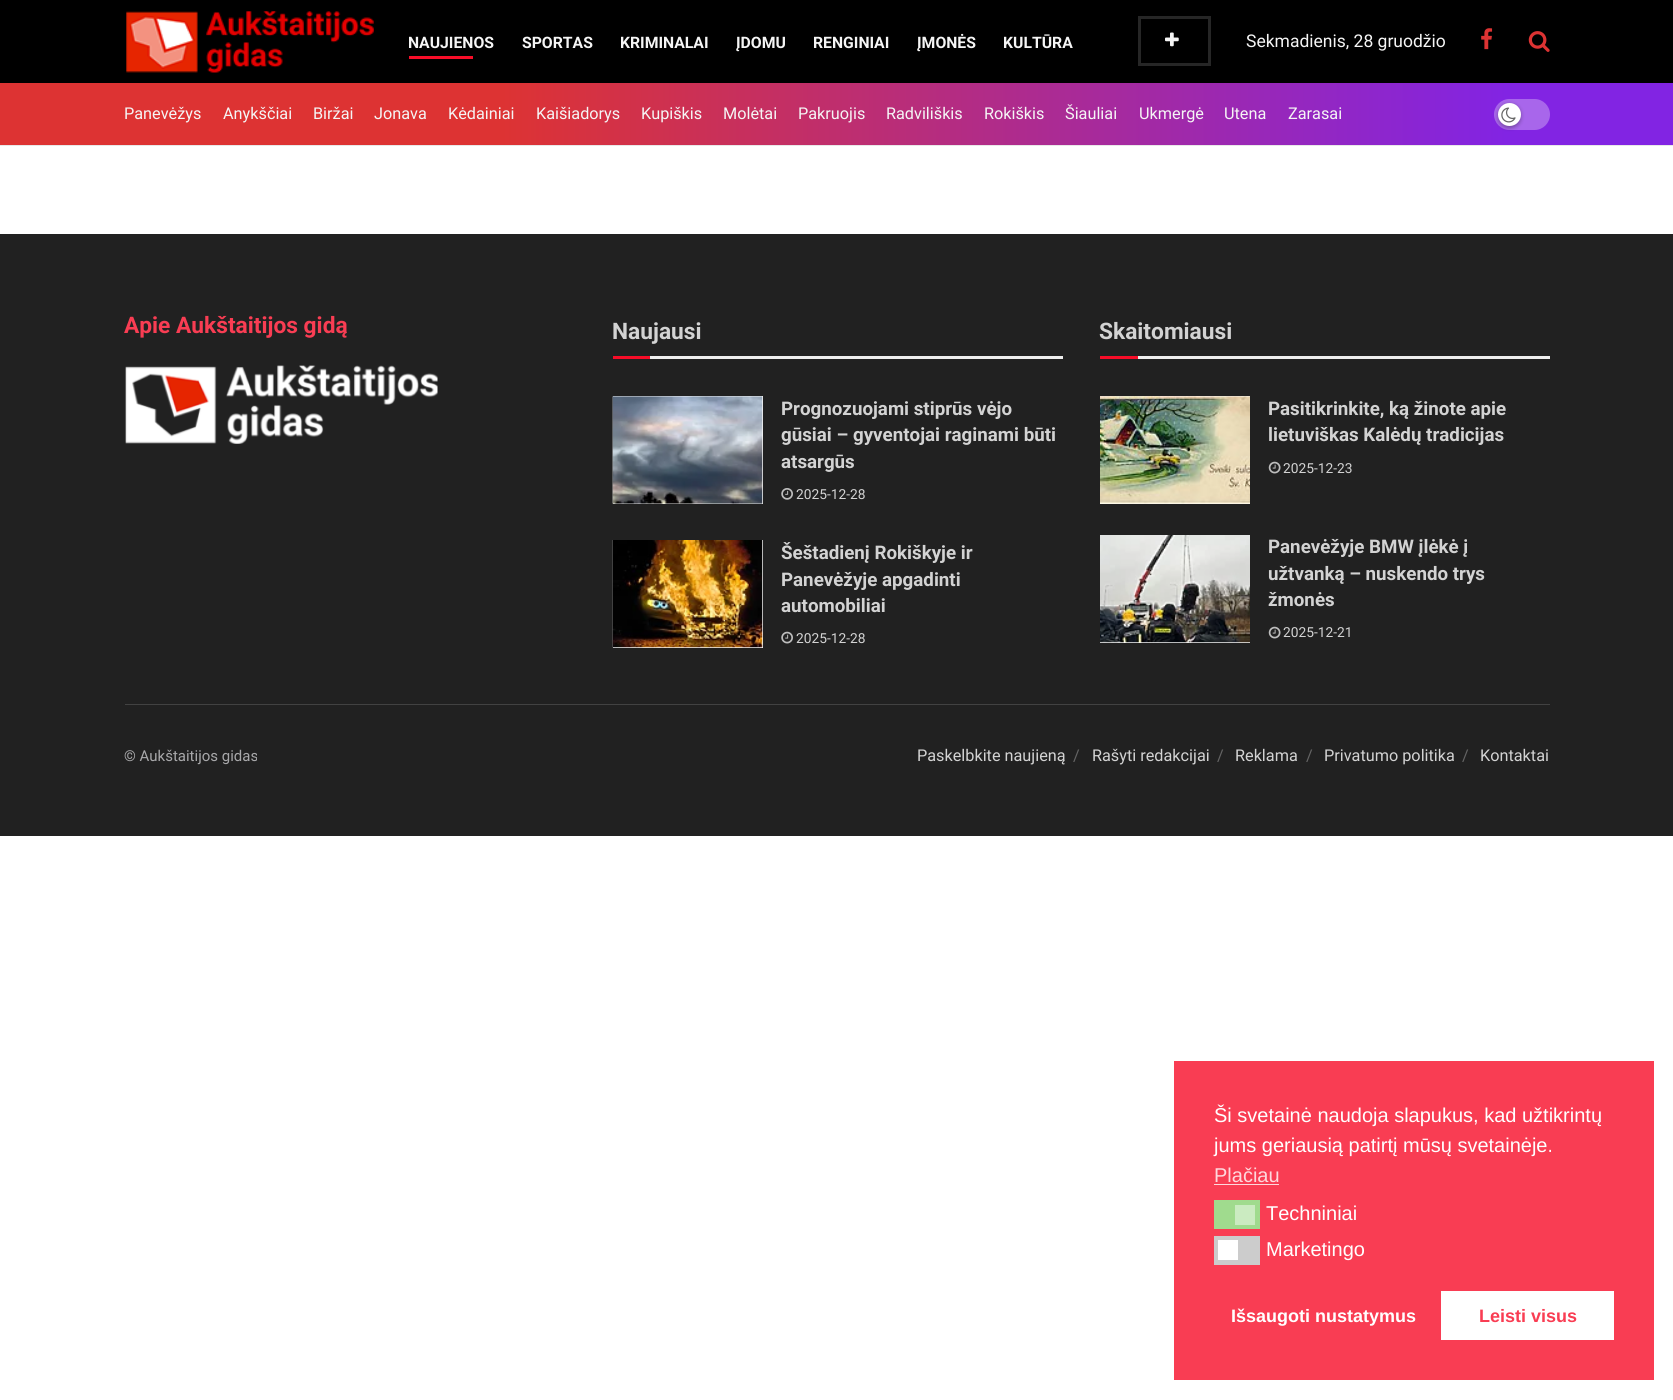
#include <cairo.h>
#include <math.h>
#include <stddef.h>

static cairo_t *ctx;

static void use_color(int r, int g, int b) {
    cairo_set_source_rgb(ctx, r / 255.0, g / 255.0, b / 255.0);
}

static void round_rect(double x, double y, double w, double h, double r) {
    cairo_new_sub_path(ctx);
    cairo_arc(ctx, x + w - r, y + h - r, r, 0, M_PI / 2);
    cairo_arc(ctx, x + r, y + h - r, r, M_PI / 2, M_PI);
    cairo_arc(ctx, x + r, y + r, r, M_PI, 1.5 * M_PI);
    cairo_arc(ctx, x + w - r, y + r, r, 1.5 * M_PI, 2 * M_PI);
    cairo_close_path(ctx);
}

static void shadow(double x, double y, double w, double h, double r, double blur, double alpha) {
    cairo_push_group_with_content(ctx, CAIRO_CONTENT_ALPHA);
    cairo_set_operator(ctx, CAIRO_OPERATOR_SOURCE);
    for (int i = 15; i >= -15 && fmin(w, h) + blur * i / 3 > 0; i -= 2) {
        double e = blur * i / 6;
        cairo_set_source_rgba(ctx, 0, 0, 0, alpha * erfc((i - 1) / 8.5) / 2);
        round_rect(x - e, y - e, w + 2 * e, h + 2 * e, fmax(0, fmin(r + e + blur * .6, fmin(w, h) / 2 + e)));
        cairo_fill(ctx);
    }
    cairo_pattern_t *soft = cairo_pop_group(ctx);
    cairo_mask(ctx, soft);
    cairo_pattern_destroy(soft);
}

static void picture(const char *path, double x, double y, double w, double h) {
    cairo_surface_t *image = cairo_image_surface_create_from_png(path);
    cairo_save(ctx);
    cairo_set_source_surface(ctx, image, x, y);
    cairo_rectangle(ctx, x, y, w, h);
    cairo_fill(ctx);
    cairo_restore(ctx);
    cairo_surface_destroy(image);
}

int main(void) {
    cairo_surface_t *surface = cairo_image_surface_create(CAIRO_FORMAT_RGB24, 1673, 1400);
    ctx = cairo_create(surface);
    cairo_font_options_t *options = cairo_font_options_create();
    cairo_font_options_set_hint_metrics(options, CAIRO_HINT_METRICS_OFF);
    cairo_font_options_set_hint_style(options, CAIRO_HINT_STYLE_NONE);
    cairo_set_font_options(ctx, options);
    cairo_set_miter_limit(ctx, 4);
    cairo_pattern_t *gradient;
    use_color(255, 255, 255);
    cairo_paint(ctx);
    use_color(0, 0, 0);
    cairo_rectangle(ctx, 0, 0, 1673, 83);
    cairo_fill(ctx);
    picture("img1.png", 126, 11, 248, 62);
    cairo_select_font_face(ctx, "Roboto", CAIRO_FONT_SLANT_NORMAL, CAIRO_FONT_WEIGHT_BOLD);
    cairo_set_font_size(ctx, 15.75);
    use_color(245, 245, 245);
    cairo_move_to(ctx, 408, 48);
    cairo_show_text(ctx, "NAUJIENOS");
    use_color(247, 13, 40);
    cairo_rectangle(ctx, 409, 56, 64, 3);
    cairo_fill(ctx);
    use_color(245, 245, 245);
    cairo_move_to(ctx, 522, 48);
    cairo_show_text(ctx, "SPORTAS");
    cairo_move_to(ctx, 620, 48);
    cairo_show_text(ctx, "KRIMINALAI");
    cairo_move_to(ctx, 736, 48);
    cairo_show_text(ctx, "ĮDOMU");
    cairo_move_to(ctx, 813, 48);
    cairo_show_text(ctx, "RENGINIAI");
    cairo_move_to(ctx, 917, 48);
    cairo_show_text(ctx, "ĮMONĖS");
    cairo_move_to(ctx, 1003, 48);
    cairo_show_text(ctx, "KULTŪRA");
    cairo_rectangle(ctx, 1139.5, 17.5, 70, 47);
    use_color(38, 38, 38);
    cairo_set_line_width(ctx, 3);
    cairo_stroke(ctx);
    picture("img2.png", 1165, 32, 14, 15);
    cairo_select_font_face(ctx, "Roboto", CAIRO_FONT_SLANT_NORMAL, CAIRO_FONT_WEIGHT_NORMAL);
    cairo_set_font_size(ctx, 17.5);
    use_color(245, 245, 245);
    cairo_move_to(ctx, 1246, 47);
    cairo_show_text(ctx, "Sekmadienis, 28 gruodžio");
    picture("img3.png", 1481, 28, 12, 22);
    picture("img4.png", 1528, 31, 22, 21);
    gradient = cairo_pattern_create_linear(0, 114, 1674, 114);
    cairo_pattern_add_color_stop_rgba(gradient, 0.3, 0.867, 0.2, 0.2, 1);
    cairo_pattern_add_color_stop_rgba(gradient, 0.9, 0.51, 0.141, 0.89, 1);
    cairo_set_source(ctx, gradient);
    cairo_pattern_destroy(gradient);
    cairo_rectangle(ctx, 0, 83, 1673, 62);
    cairo_fill(ctx);
    use_color(232, 232, 232);
    cairo_rectangle(ctx, 0, 145, 1673, 1);
    cairo_fill(ctx);
    cairo_set_font_size(ctx, 16.25);
    use_color(245, 245, 245);
    cairo_move_to(ctx, 124, 119);
    cairo_show_text(ctx, "Panevėžys");
    cairo_move_to(ctx, 223, 119);
    cairo_show_text(ctx, "Anykščiai");
    cairo_move_to(ctx, 313, 119);
    cairo_show_text(ctx, "Biržai");
    cairo_move_to(ctx, 374, 119);
    cairo_show_text(ctx, "Jonava");
    cairo_move_to(ctx, 448, 119);
    cairo_show_text(ctx, "Kėdainiai");
    cairo_move_to(ctx, 536, 119);
    cairo_show_text(ctx, "Kaišiadorys");
    cairo_move_to(ctx, 641, 119);
    cairo_show_text(ctx, "Kupiškis");
    cairo_move_to(ctx, 723, 119);
    cairo_show_text(ctx, "Molėtai");
    cairo_move_to(ctx, 798, 119);
    cairo_show_text(ctx, "Pakruojis");
    cairo_move_to(ctx, 886, 119);
    cairo_show_text(ctx, "Radviliškis");
    cairo_move_to(ctx, 984, 119);
    cairo_show_text(ctx, "Rokiškis");
    cairo_move_to(ctx, 1065, 119);
    cairo_show_text(ctx, "Šiauliai");
    cairo_move_to(ctx, 1139, 119);
    cairo_show_text(ctx, "Ukmergė");
    cairo_move_to(ctx, 1224, 119);
    cairo_show_text(ctx, "Utena");
    cairo_move_to(ctx, 1288, 119);
    cairo_show_text(ctx, "Zarasai");
    use_color(168, 102, 235);
    round_rect(1494, 99, 56, 31, 15.5);
    cairo_fill(ctx);
    use_color(0, 0, 0);
    shadow(1498, 104, 23, 24, 11.5, 2, 0.3);
    use_color(255, 255, 255);
    cairo_arc(ctx, 1509.5, 114.5, 11.5, 0, 2 * M_PI);
    cairo_fill(ctx);
    picture("img5.png", 1501, 107, 15, 16);
    use_color(33, 33, 33);
    cairo_rectangle(ctx, 0, 234, 1673, 602);
    cairo_fill(ctx);
    cairo_select_font_face(ctx, "Roboto", CAIRO_FONT_SLANT_NORMAL, CAIRO_FONT_WEIGHT_BOLD);
    cairo_set_font_size(ctx, 22.75);
    use_color(249, 61, 83);
    cairo_move_to(ctx, 124, 333);
    cairo_show_text(ctx, "Apie Aukštaitijos gidą");
    picture("img6.png", 125, 365, 313, 79);
    use_color(238, 238, 238);
    cairo_rectangle(ctx, 650, 356, 413, 3);
    cairo_fill(ctx);
    use_color(211, 211, 211);
    cairo_move_to(ctx, 612, 339);
    cairo_show_text(ctx, "Naujausi");
    use_color(247, 13, 40);
    cairo_rectangle(ctx, 613, 356, 37, 3);
    cairo_fill(ctx);
    use_color(247, 247, 247);
    cairo_rectangle(ctx, 613, 396, 150, 108);
    cairo_fill(ctx);
    picture("img7.png", 612, 396, 1, 108);
    picture("img8.png", 612, 396, 151, 108);
    cairo_set_font_size(ctx, 18.75);
    use_color(211, 211, 211);
    cairo_move_to(ctx, 781, 415);
    cairo_show_text(ctx, "Prognozuojami stiprūs vėjo");
    cairo_move_to(ctx, 781, 441);
    cairo_show_text(ctx, "gūsiai – gyventojai raginami būti");
    cairo_move_to(ctx, 781, 468);
    cairo_show_text(ctx, "atsargūs");
    picture("img9.png", 781, 488, 12, 12);
    cairo_select_font_face(ctx, "Roboto", CAIRO_FONT_SLANT_NORMAL, CAIRO_FONT_WEIGHT_NORMAL);
    cairo_set_font_size(ctx, 13.75);
    cairo_move_to(ctx, 796, 499);
    cairo_show_text(ctx, "2025-12-28");
    use_color(247, 247, 247);
    cairo_rectangle(ctx, 613, 540, 150, 108);
    cairo_fill(ctx);
    picture("img10.png", 612, 540, 1, 108);
    picture("img11.png", 612, 540, 151, 108);
    cairo_select_font_face(ctx, "Roboto", CAIRO_FONT_SLANT_NORMAL, CAIRO_FONT_WEIGHT_BOLD);
    cairo_set_font_size(ctx, 18.75);
    use_color(211, 211, 211);
    cairo_move_to(ctx, 781, 559);
    cairo_show_text(ctx, "Šeštadienį Rokiškyje ir");
    cairo_move_to(ctx, 781, 586);
    cairo_show_text(ctx, "Panevėžyje apgadinti");
    cairo_move_to(ctx, 781, 612);
    cairo_show_text(ctx, "automobiliai");
    picture("img12.png", 781, 631, 12, 13);
    cairo_select_font_face(ctx, "Roboto", CAIRO_FONT_SLANT_NORMAL, CAIRO_FONT_WEIGHT_NORMAL);
    cairo_set_font_size(ctx, 13.75);
    cairo_move_to(ctx, 796, 643);
    cairo_show_text(ctx, "2025-12-28");
    use_color(238, 238, 238);
    cairo_rectangle(ctx, 1138, 356, 412, 3);
    cairo_fill(ctx);
    cairo_select_font_face(ctx, "Roboto", CAIRO_FONT_SLANT_NORMAL, CAIRO_FONT_WEIGHT_BOLD);
    cairo_set_font_size(ctx, 22.75);
    use_color(211, 211, 211);
    cairo_move_to(ctx, 1099, 339);
    cairo_show_text(ctx, "Skaitomiausi");
    use_color(247, 13, 40);
    cairo_rectangle(ctx, 1100, 356, 38, 3);
    cairo_fill(ctx);
    use_color(247, 247, 247);
    cairo_rectangle(ctx, 1100, 396, 150, 108);
    cairo_fill(ctx);
    picture("img13.png", 1100, 396, 150, 108);
    cairo_set_font_size(ctx, 18.75);
    use_color(211, 211, 211);
    cairo_move_to(ctx, 1268, 415);
    cairo_show_text(ctx, "Pasitikrinkite, ką žinote apie");
    cairo_move_to(ctx, 1268, 441);
    cairo_show_text(ctx, "lietuviškas Kalėdų tradicijas");
    picture("img14.png", 1268, 461, 13, 13);
    cairo_select_font_face(ctx, "Roboto", CAIRO_FONT_SLANT_NORMAL, CAIRO_FONT_WEIGHT_NORMAL);
    cairo_set_font_size(ctx, 13.75);
    cairo_move_to(ctx, 1283, 473);
    cairo_show_text(ctx, "2025-12-23");
    use_color(247, 247, 247);
    cairo_rectangle(ctx, 1100, 642, 150, 1);
    cairo_fill(ctx);
    picture("img15.png", 1100, 535, 150, 108);
    cairo_select_font_face(ctx, "Roboto", CAIRO_FONT_SLANT_NORMAL, CAIRO_FONT_WEIGHT_BOLD);
    cairo_set_font_size(ctx, 18.75);
    use_color(211, 211, 211);
    cairo_move_to(ctx, 1268, 553);
    cairo_show_text(ctx, "Panevėžyje BMW įlėkė į");
    cairo_move_to(ctx, 1268, 580);
    cairo_show_text(ctx, "užtvanką – nuskendo trys");
    cairo_move_to(ctx, 1268, 606);
    cairo_show_text(ctx, "žmonės");
    picture("img14.png", 1268, 626, 13, 13);
    cairo_select_font_face(ctx, "Roboto", CAIRO_FONT_SLANT_NORMAL, CAIRO_FONT_WEIGHT_NORMAL);
    cairo_set_font_size(ctx, 13.75);
    cairo_move_to(ctx, 1283, 637);
    cairo_show_text(ctx, "2025-12-21");
    use_color(66, 66, 66);
    cairo_rectangle(ctx, 125, 704, 1425, 1);
    cairo_fill(ctx);
    cairo_set_font_size(ctx, 15);
    use_color(168, 168, 170);
    cairo_move_to(ctx, 124, 761);
    cairo_show_text(ctx, "© Aukštaitijos gidas");
    cairo_set_font_size(ctx, 16.25);
    use_color(211, 211, 211);
    cairo_move_to(ctx, 917, 761);
    cairo_show_text(ctx, "Paskelbkite naujieną");
    use_color(100, 100, 100);
    cairo_move_to(ctx, 1073, 761);
    cairo_show_text(ctx, "/");
    use_color(211, 211, 211);
    cairo_move_to(ctx, 1092, 761);
    cairo_show_text(ctx, "Rašyti redakcijai");
    use_color(100, 100, 100);
    cairo_move_to(ctx, 1217, 761);
    cairo_show_text(ctx, "/");
    use_color(211, 211, 211);
    cairo_move_to(ctx, 1235, 761);
    cairo_show_text(ctx, "Reklama");
    use_color(100, 100, 100);
    cairo_move_to(ctx, 1306, 761);
    cairo_show_text(ctx, "/");
    use_color(211, 211, 211);
    cairo_move_to(ctx, 1324, 761);
    cairo_show_text(ctx, "Privatumo politika");
    use_color(100, 100, 100);
    cairo_move_to(ctx, 1462, 761);
    cairo_show_text(ctx, "/");
    use_color(211, 211, 211);
    cairo_move_to(ctx, 1480, 761);
    cairo_show_text(ctx, "Kontaktai");
    use_color(249, 61, 83);
    cairo_rectangle(ctx, 1174, 1061, 480, 319);
    cairo_fill(ctx);
    cairo_select_font_face(ctx, "Liberation Sans", CAIRO_FONT_SLANT_NORMAL, CAIRO_FONT_WEIGHT_NORMAL);
    cairo_set_font_size(ctx, 20);
    use_color(255, 255, 255);
    cairo_move_to(ctx, 1214, 1122);
    cairo_show_text(ctx, "Ši svetainė naudoja slapukus, kad užtikrintų");
    cairo_move_to(ctx, 1214, 1152);
    cairo_show_text(ctx, "jums geriausią patirtį mūsų svetainėje.");
    use_color(254, 216, 221);
    cairo_move_to(ctx, 1214, 1182);
    cairo_show_text(ctx, "Plačiau");
    cairo_rectangle(ctx, 1214, 1184, 65, 1);
    cairo_fill(ctx);
    use_color(160, 219, 142);
    cairo_rectangle(ctx, 1214, 1200, 46, 29);
    cairo_fill(ctx);
    use_color(203, 235, 193);
    cairo_rectangle(ctx, 1235, 1205, 20, 20);
    cairo_fill(ctx);
    use_color(255, 255, 255);
    cairo_move_to(ctx, 1266, 1220);
    cairo_show_text(ctx, "Techniniai");
    use_color(204, 204, 204);
    cairo_rectangle(ctx, 1214, 1236, 46, 29);
    cairo_fill(ctx);
    use_color(255, 255, 255);
    cairo_rectangle(ctx, 1218, 1240, 20, 20);
    cairo_fill(ctx);
    cairo_move_to(ctx, 1266, 1256);
    cairo_show_text(ctx, "Marketingo");
    cairo_select_font_face(ctx, "Liberation Sans", CAIRO_FONT_SLANT_NORMAL, CAIRO_FONT_WEIGHT_BOLD);
    cairo_set_font_size(ctx, 18);
    cairo_move_to(ctx, 1231, 1322);
    cairo_show_text(ctx, "Išsaugoti nustatymus");
    cairo_rectangle(ctx, 1441, 1291, 173, 49);
    cairo_fill(ctx);
    use_color(249, 61, 83);
    cairo_move_to(ctx, 1479, 1322);
    cairo_show_text(ctx, "Leisti visus");
    cairo_surface_write_to_png(surface, "result.png");
    cairo_font_options_destroy(options);
    cairo_destroy(ctx);
    cairo_surface_destroy(surface);
    return 0;
}
